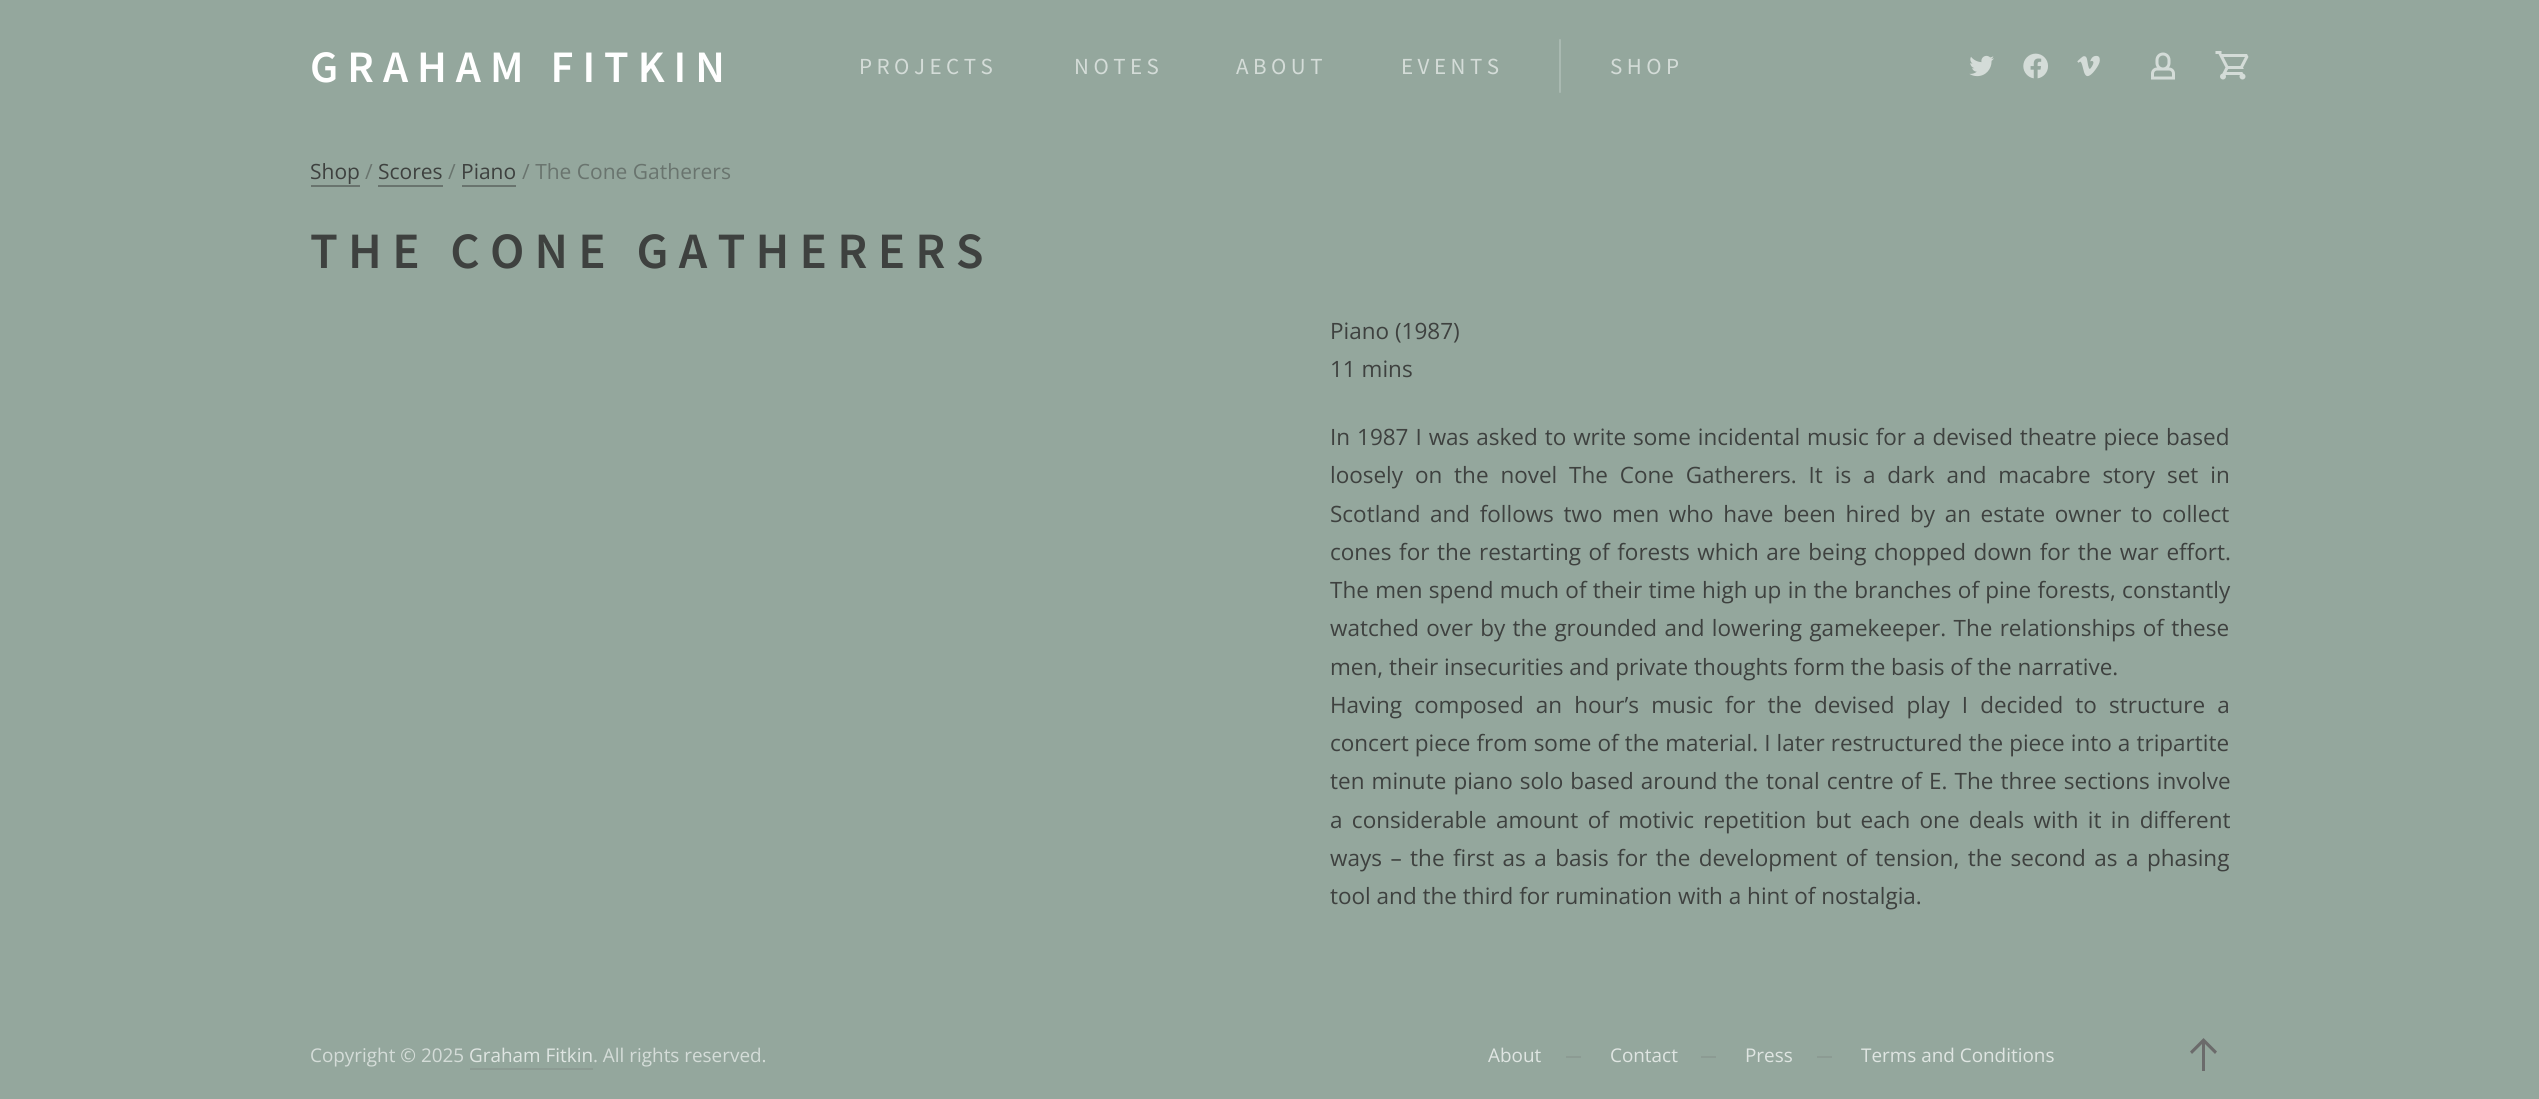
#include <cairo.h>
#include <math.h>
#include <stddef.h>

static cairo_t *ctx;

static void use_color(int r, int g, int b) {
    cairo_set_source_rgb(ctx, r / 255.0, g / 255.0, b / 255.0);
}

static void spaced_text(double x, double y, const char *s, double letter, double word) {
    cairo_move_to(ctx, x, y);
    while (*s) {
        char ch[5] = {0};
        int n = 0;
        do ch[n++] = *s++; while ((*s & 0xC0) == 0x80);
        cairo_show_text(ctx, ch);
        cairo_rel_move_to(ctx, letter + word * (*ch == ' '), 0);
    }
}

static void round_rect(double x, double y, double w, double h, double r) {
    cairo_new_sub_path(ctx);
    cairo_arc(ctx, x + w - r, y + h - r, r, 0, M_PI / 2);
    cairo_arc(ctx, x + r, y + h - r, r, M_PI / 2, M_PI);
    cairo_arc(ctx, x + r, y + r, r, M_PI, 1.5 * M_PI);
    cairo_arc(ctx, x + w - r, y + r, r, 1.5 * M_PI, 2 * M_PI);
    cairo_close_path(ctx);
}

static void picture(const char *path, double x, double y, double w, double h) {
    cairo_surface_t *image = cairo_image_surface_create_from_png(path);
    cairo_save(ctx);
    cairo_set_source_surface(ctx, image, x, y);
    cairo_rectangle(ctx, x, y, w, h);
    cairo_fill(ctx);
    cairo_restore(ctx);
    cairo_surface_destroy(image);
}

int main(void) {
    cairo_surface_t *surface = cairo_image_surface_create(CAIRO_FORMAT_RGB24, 2539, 1099);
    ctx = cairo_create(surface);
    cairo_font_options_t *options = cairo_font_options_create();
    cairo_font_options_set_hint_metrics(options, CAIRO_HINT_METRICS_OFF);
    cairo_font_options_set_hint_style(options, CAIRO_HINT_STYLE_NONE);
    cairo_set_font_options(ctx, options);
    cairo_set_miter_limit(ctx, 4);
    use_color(148, 167, 157);
    cairo_paint(ctx);
    cairo_select_font_face(ctx, "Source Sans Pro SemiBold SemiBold", CAIRO_FONT_SLANT_NORMAL, CAIRO_FONT_WEIGHT_NORMAL);
    cairo_set_font_size(ctx, 45);
    use_color(255, 255, 255);
    spaced_text(310, 82, "GRAHAM FITKIN", 9, 0);
    cairo_select_font_face(ctx, "Source Sans Pro", CAIRO_FONT_SLANT_NORMAL, CAIRO_FONT_WEIGHT_NORMAL);
    cairo_set_font_size(ctx, 23);
    use_color(212, 220, 216);
    spaced_text(859, 74, "PROJECTS", 4.5, 0);
    spaced_text(1074, 74, "NOTES", 4.5, 0);
    spaced_text(1236, 74, "ABOUT", 4.5, 0);
    spaced_text(1401, 74, "EVENTS", 4.5, 0);
    use_color(169, 185, 177);
    round_rect(1559, 39, 2, 54, 1);
    cairo_fill(ctx);
    use_color(212, 220, 216);
    spaced_text(1610, 74, "SHOP", 4.5, 0);
    picture("img1.png", 1969, 55, 25, 22);
    picture("img2.png", 2023, 53, 25, 26);
    picture("img3.png", 2077, 55, 23, 22);
    picture("img4.png", 2151, 52, 24, 28);
    picture("img5.png", 2215, 51, 34, 29);
    cairo_select_font_face(ctx, "Open Sans", CAIRO_FONT_SLANT_NORMAL, CAIRO_FONT_WEIGHT_NORMAL);
    cairo_set_font_size(ctx, 21);
    use_color(62, 65, 63);
    cairo_move_to(ctx, 310, 179);
    cairo_show_text(ctx, "Shop");
    use_color(105, 116, 110);
    cairo_rectangle(ctx, 311, 185, 49, 2);
    cairo_fill(ctx);
    cairo_move_to(ctx, 365, 179);
    cairo_show_text(ctx, "/");
    use_color(62, 65, 63);
    cairo_move_to(ctx, 378, 179);
    cairo_show_text(ctx, "Scores");
    use_color(105, 116, 110);
    cairo_rectangle(ctx, 378, 185, 65, 2);
    cairo_fill(ctx);
    cairo_move_to(ctx, 448, 179);
    cairo_show_text(ctx, "/");
    use_color(62, 65, 63);
    cairo_move_to(ctx, 461, 179);
    cairo_show_text(ctx, "Piano");
    use_color(105, 116, 110);
    cairo_rectangle(ctx, 462, 185, 54, 2);
    cairo_fill(ctx);
    cairo_move_to(ctx, 522, 179);
    cairo_show_text(ctx, "/ The Cone Gatherers");
    cairo_select_font_face(ctx, "Source Sans Pro SemiBold SemiBold", CAIRO_FONT_SLANT_NORMAL, CAIRO_FONT_WEIGHT_NORMAL);
    cairo_set_font_size(ctx, 51);
    use_color(62, 65, 63);
    spaced_text(310, 268, "THE CONE GATHERERS", 10.25, 0);
    cairo_select_font_face(ctx, "Open Sans", CAIRO_FONT_SLANT_NORMAL, CAIRO_FONT_WEIGHT_NORMAL);
    cairo_set_font_size(ctx, 22.5);
    cairo_move_to(ctx, 1330, 339);
    cairo_show_text(ctx, "Piano (1987)");
    cairo_move_to(ctx, 1330, 377);
    cairo_show_text(ctx, "11 mins");
    spaced_text(1330, 445, "In 1987 I was asked to write some incidental music for a devised theatre piece based", 0, 1.1);
    spaced_text(1330, 483, "loosely on the novel The Cone Gatherers. It is a dark and macabre story set in", 0, 6);
    spaced_text(1330, 522, "Scotland and follows two men who have been hired by an estate owner to collect", 0, 3.75);
    spaced_text(1330, 560, "cones for the restarting of forests which are being chopped down for the war effort.", 0, 1.75);
    spaced_text(1330, 598, "The men spend much of their time high up in the branches of pine forests, constantly", 0, 0.5);
    spaced_text(1330, 636, "watched over by the grounded and lowering gamekeeper. The relationships of these", 0, 1.5);
    cairo_move_to(ctx, 1330, 675);
    cairo_show_text(ctx, "men, their insecurities and private thoughts form the basis of the narrative.");
    spaced_text(1330, 713, "Having composed an hour’s music for the devised play I decided to structure a", 0, 6.25);
    spaced_text(1330, 751, "concert piece from some of the material. I later restructured the piece into a tripartite", 0, 0.25);
    spaced_text(1330, 789, "ten minute piano solo based around the tonal centre of E. The three sections involve", 0, 1.25);
    spaced_text(1330, 828, "a considerable amount of motivic repetition but each one deals with it in different", 0, 3.5);
    spaced_text(1330, 866, "ways – the first as a basis for the development of tension, the second as a phasing", 0, 2.6);
    cairo_move_to(ctx, 1330, 904);
    cairo_show_text(ctx, "tool and the third for rumination with a hint of nostalgia.");
    cairo_set_font_size(ctx, 18.9);
    use_color(212, 220, 216);
    cairo_move_to(ctx, 310, 1062);
    cairo_show_text(ctx, "Copyright © 2025");
    use_color(223, 229, 226);
    cairo_move_to(ctx, 469, 1062);
    cairo_show_text(ctx, "Graham Fitkin");
    use_color(140, 155, 147);
    cairo_rectangle(ctx, 470, 1068, 123, 2);
    cairo_fill(ctx);
    use_color(212, 220, 216);
    cairo_move_to(ctx, 593, 1062);
    cairo_show_text(ctx, ". All rights reserved.");
    use_color(223, 229, 226);
    cairo_move_to(ctx, 1488, 1062);
    cairo_show_text(ctx, "About");
    use_color(140, 155, 147);
    cairo_rectangle(ctx, 1566, 1056, 15, 2);
    cairo_fill(ctx);
    use_color(223, 229, 226);
    cairo_move_to(ctx, 1610, 1062);
    cairo_show_text(ctx, "Contact");
    use_color(140, 155, 147);
    cairo_rectangle(ctx, 1701, 1056, 15, 2);
    cairo_fill(ctx);
    use_color(223, 229, 226);
    cairo_move_to(ctx, 1745, 1062);
    cairo_show_text(ctx, "Press");
    use_color(140, 155, 147);
    cairo_rectangle(ctx, 1817, 1056, 15, 2);
    cairo_fill(ctx);
    use_color(223, 229, 226);
    cairo_move_to(ctx, 1861, 1062);
    cairo_show_text(ctx, "Terms and Conditions");
    use_color(107, 107, 107);
    cairo_new_path(ctx);
    cairo_move_to(ctx, 2203.5, 1038);
    cairo_line_to(ctx, 2190, 1051.5);
    cairo_line_to(ctx, 2192, 1054);
    cairo_line_to(ctx, 2202, 1044);
    cairo_line_to(ctx, 2202, 1071);
    cairo_line_to(ctx, 2205, 1071);
    cairo_line_to(ctx, 2205, 1044);
    cairo_line_to(ctx, 2215, 1054);
    cairo_line_to(ctx, 2217, 1051.5);
    cairo_close_path(ctx);
    cairo_fill(ctx);
    cairo_surface_write_to_png(surface, "result.png");
    cairo_font_options_destroy(options);
    cairo_destroy(ctx);
    cairo_surface_destroy(surface);
    return 0;
}
